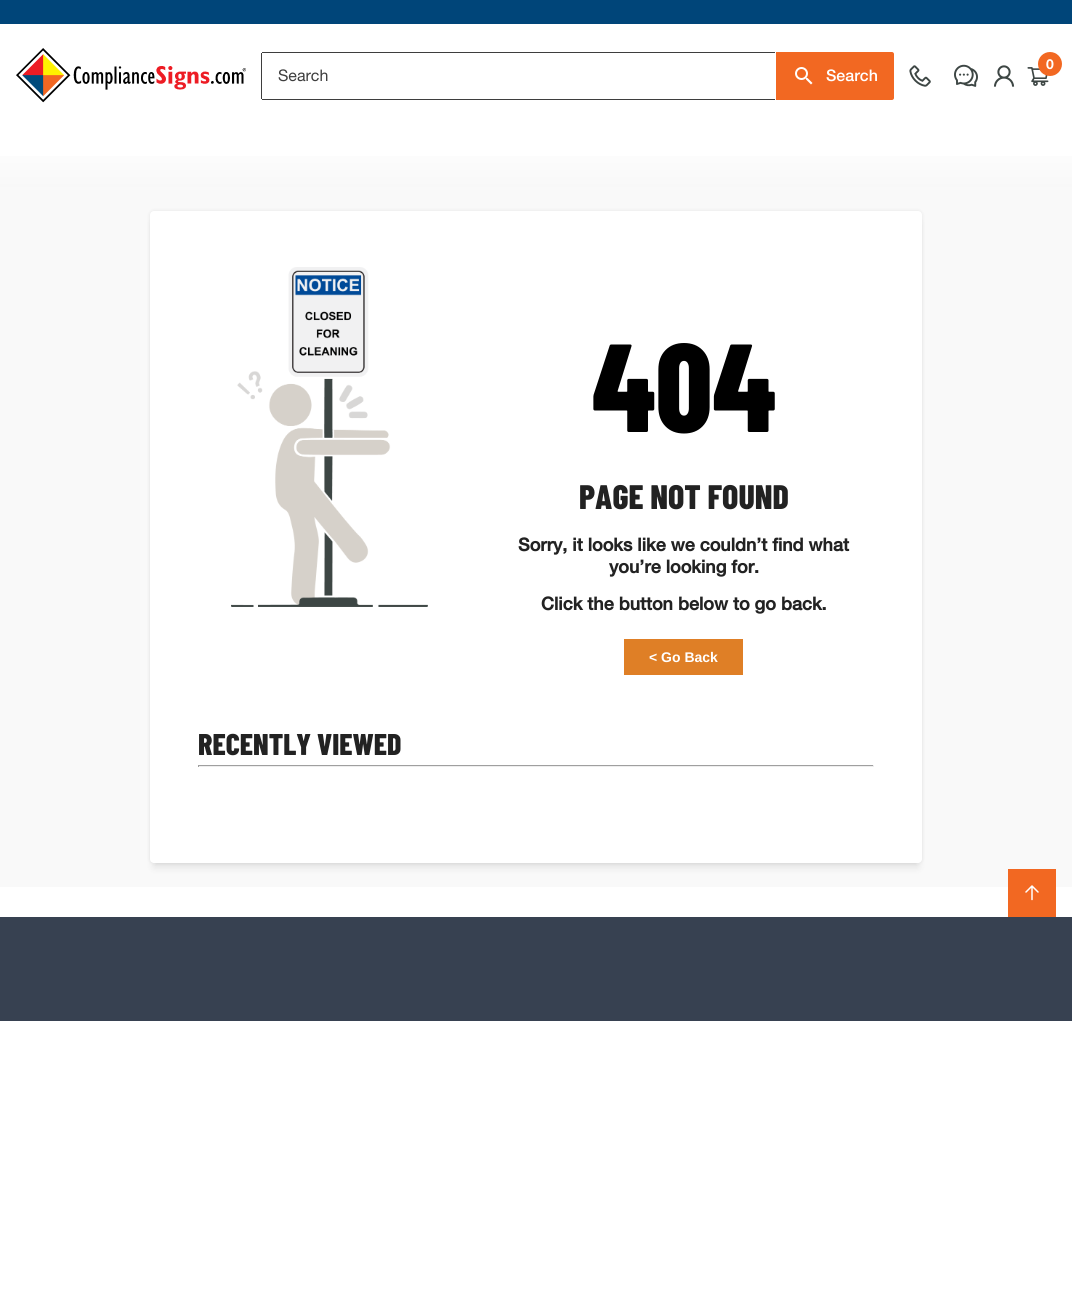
#include <cairo.h>
#include <math.h>
#include <stddef.h>

static cairo_t *ctx;

static void use_color(int r, int g, int b) {
    cairo_set_source_rgb(ctx, r / 255.0, g / 255.0, b / 255.0);
}

static void round_rect(double x, double y, double w, double h, double r) {
    cairo_new_sub_path(ctx);
    cairo_arc(ctx, x + w - r, y + h - r, r, 0, M_PI / 2);
    cairo_arc(ctx, x + r, y + h - r, r, M_PI / 2, M_PI);
    cairo_arc(ctx, x + r, y + r, r, M_PI, 1.5 * M_PI);
    cairo_arc(ctx, x + w - r, y + r, r, 1.5 * M_PI, 2 * M_PI);
    cairo_close_path(ctx);
}

static void shadow(double x, double y, double w, double h, double r, double blur, double alpha) {
    cairo_push_group_with_content(ctx, CAIRO_CONTENT_ALPHA);
    cairo_set_operator(ctx, CAIRO_OPERATOR_SOURCE);
    for (int i = 15; i >= -15 && fmin(w, h) + blur * i / 3 > 0; i -= 2) {
        double e = blur * i / 6;
        cairo_set_source_rgba(ctx, 0, 0, 0, alpha * erfc((i - 1) / 8.5) / 2);
        round_rect(x - e, y - e, w + 2 * e, h + 2 * e, fmax(0, fmin(r + e + blur * .6, fmin(w, h) / 2 + e)));
        cairo_fill(ctx);
    }
    cairo_pattern_t *soft = cairo_pop_group(ctx);
    cairo_mask(ctx, soft);
    cairo_pattern_destroy(soft);
}

static void picture(const char *path, double x, double y, double w, double h) {
    cairo_surface_t *image = cairo_image_surface_create_from_png(path);
    cairo_save(ctx);
    cairo_set_source_surface(ctx, image, x, y);
    cairo_rectangle(ctx, x, y, w, h);
    cairo_fill(ctx);
    cairo_restore(ctx);
    cairo_surface_destroy(image);
}

int main(void) {
    cairo_surface_t *surface = cairo_image_surface_create(CAIRO_FORMAT_RGB24, 1072, 1309);
    ctx = cairo_create(surface);
    cairo_font_options_t *options = cairo_font_options_create();
    cairo_font_options_set_hint_metrics(options, CAIRO_HINT_METRICS_OFF);
    cairo_font_options_set_hint_style(options, CAIRO_HINT_STYLE_NONE);
    cairo_set_font_options(ctx, options);
    cairo_set_miter_limit(ctx, 4);
    cairo_pattern_t *gradient;
    use_color(255, 255, 255);
    cairo_paint(ctx);
    use_color(0, 69, 121);
    cairo_rectangle(ctx, 0, 0, 1072, 24);
    cairo_fill(ctx);
    gradient = cairo_pattern_create_linear(536, 24, 536, 187);
    cairo_pattern_add_color_stop_rgba(gradient, 0.7, 1, 1, 1, 1);
    cairo_pattern_add_color_stop_rgba(gradient, 1, 0.973, 0.973, 0.973, 1);
    cairo_set_source(ctx, gradient);
    cairo_pattern_destroy(gradient);
    cairo_rectangle(ctx, 0, 156, 1072, 31);
    cairo_fill(ctx);
    picture("img1.png", 16, 48, 230, 55);
    use_color(62, 62, 62);
    cairo_rectangle(ctx, 262, 52, 513, 1);
    cairo_fill(ctx);
    cairo_rectangle(ctx, 262, 99, 513, 1);
    cairo_fill(ctx);
    cairo_rectangle(ctx, 261, 53, 1, 46);
    cairo_fill(ctx);
    cairo_select_font_face(ctx, "Helvetica Neue", CAIRO_FONT_SLANT_NORMAL, CAIRO_FONT_WEIGHT_NORMAL);
    cairo_set_font_size(ctx, 16);
    cairo_move_to(ctx, 278, 81);
    cairo_show_text(ctx, "Search");
    use_color(242, 104, 34);
    cairo_new_path(ctx);
    cairo_move_to(ctx, 776, 52);
    cairo_line_to(ctx, 892, 52);
    cairo_curve_to(ctx, 893, 52, 894, 53, 894, 54);
    cairo_line_to(ctx, 894, 98);
    cairo_curve_to(ctx, 894, 99, 893, 100, 892, 100);
    cairo_line_to(ctx, 776, 100);
    cairo_close_path(ctx);
    cairo_fill(ctx);
    picture("img2.png", 795, 67, 18, 18);
    cairo_select_font_face(ctx, "Helvetica Neue Medium", CAIRO_FONT_SLANT_NORMAL, CAIRO_FONT_WEIGHT_NORMAL);
    use_color(255, 255, 255);
    cairo_move_to(ctx, 826, 81);
    cairo_show_text(ctx, "Search");
    picture("img3.png", 909, 65, 22, 22);
    picture("img4.png", 954, 64, 24, 23);
    picture("img5.png", 993, 65, 22, 22);
    picture("img6.png", 1027, 67, 22, 19);
    use_color(242, 104, 34);
    cairo_arc(ctx, 1050, 64, 12, 0, 2 * M_PI);
    cairo_fill(ctx);
    cairo_select_font_face(ctx, "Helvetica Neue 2", CAIRO_FONT_SLANT_NORMAL, CAIRO_FONT_WEIGHT_BOLD);
    cairo_set_font_size(ctx, 14);
    use_color(255, 255, 255);
    cairo_move_to(ctx, 1046, 69);
    cairo_show_text(ctx, "0");
    use_color(249, 249, 249);
    cairo_rectangle(ctx, 0, 187, 1072, 700);
    cairo_fill(ctx);
    use_color(0, 0, 0);
    shadow(150, 211, 772, 652, 4, 2, 0.08);
    shadow(154, 223, 764, 644, 0, 4, 0.1);
    use_color(255, 255, 255);
    round_rect(150, 211, 772, 652, 4);
    cairo_fill(ctx);
    picture("img7.png", 231, 267, 197, 340);
    cairo_select_font_face(ctx, "Barlow Condensed ExtraBold", CAIRO_FONT_SLANT_NORMAL, CAIRO_FONT_WEIGHT_NORMAL);
    cairo_set_font_size(ctx, 125);
    use_color(0, 0, 0);
    cairo_move_to(ctx, 592, 432);
    cairo_show_text(ctx, "404");
    cairo_set_font_size(ctx, 34);
    use_color(34, 34, 34);
    cairo_move_to(ctx, 579, 509);
    cairo_show_text(ctx, "PAGE NOT FOUND");
    cairo_select_font_face(ctx, "Helvetica Neue", CAIRO_FONT_SLANT_NORMAL, CAIRO_FONT_WEIGHT_BOLD);
    cairo_set_font_size(ctx, 18);
    cairo_move_to(ctx, 518, 551);
    cairo_show_text(ctx, "Sorry, it looks like we couldn’t find what");
    cairo_move_to(ctx, 609, 573);
    cairo_show_text(ctx, "you’re looking for.");
    cairo_move_to(ctx, 541, 610);
    cairo_show_text(ctx, "Click the button below to go back.");
    use_color(223, 127, 38);
    cairo_rectangle(ctx, 624, 639, 119, 36);
    cairo_fill(ctx);
    cairo_select_font_face(ctx, "Liberation Sans", CAIRO_FONT_SLANT_NORMAL, CAIRO_FONT_WEIGHT_BOLD);
    cairo_set_font_size(ctx, 14);
    use_color(255, 255, 255);
    cairo_move_to(ctx, 649, 662);
    cairo_show_text(ctx, "< Go Back");
    cairo_select_font_face(ctx, "Barlow Condensed ExtraBold", CAIRO_FONT_SLANT_NORMAL, CAIRO_FONT_WEIGHT_NORMAL);
    cairo_set_font_size(ctx, 30);
    use_color(34, 34, 34);
    cairo_move_to(ctx, 198, 755);
    cairo_show_text(ctx, "RECENTLY VIEWED");
    use_color(159, 159, 159);
    cairo_rectangle(ctx, 198, 765, 676, 1);
    cairo_fill(ctx);
    use_color(238, 238, 238);
    cairo_rectangle(ctx, 873, 765, 1, 2);
    cairo_fill(ctx);
    cairo_rectangle(ctx, 198, 766, 676, 1);
    cairo_fill(ctx);
    use_color(159, 159, 159);
    cairo_rectangle(ctx, 198, 765, 1, 2);
    cairo_fill(ctx);
    use_color(242, 104, 34);
    cairo_rectangle(ctx, 1008, 869, 48, 48);
    cairo_fill(ctx);
    cairo_new_path(ctx);
    cairo_move_to(ctx, 1032, 899.5);
    cairo_line_to(ctx, 1032, 886);
    cairo_move_to(ctx, 1026, 892);
    cairo_line_to(ctx, 1032, 886);
    cairo_line_to(ctx, 1038, 892);
    use_color(255, 255, 255);
    cairo_set_line_width(ctx, 1.5);
    cairo_set_line_cap(ctx, CAIRO_LINE_CAP_ROUND);
    cairo_set_line_join(ctx, CAIRO_LINE_JOIN_ROUND);
    cairo_stroke(ctx);
    use_color(55, 65, 81);
    cairo_rectangle(ctx, 0, 917, 1072, 104);
    cairo_fill(ctx);
    cairo_surface_write_to_png(surface, "result.png");
    cairo_font_options_destroy(options);
    cairo_destroy(ctx);
    cairo_surface_destroy(surface);
    return 0;
}
